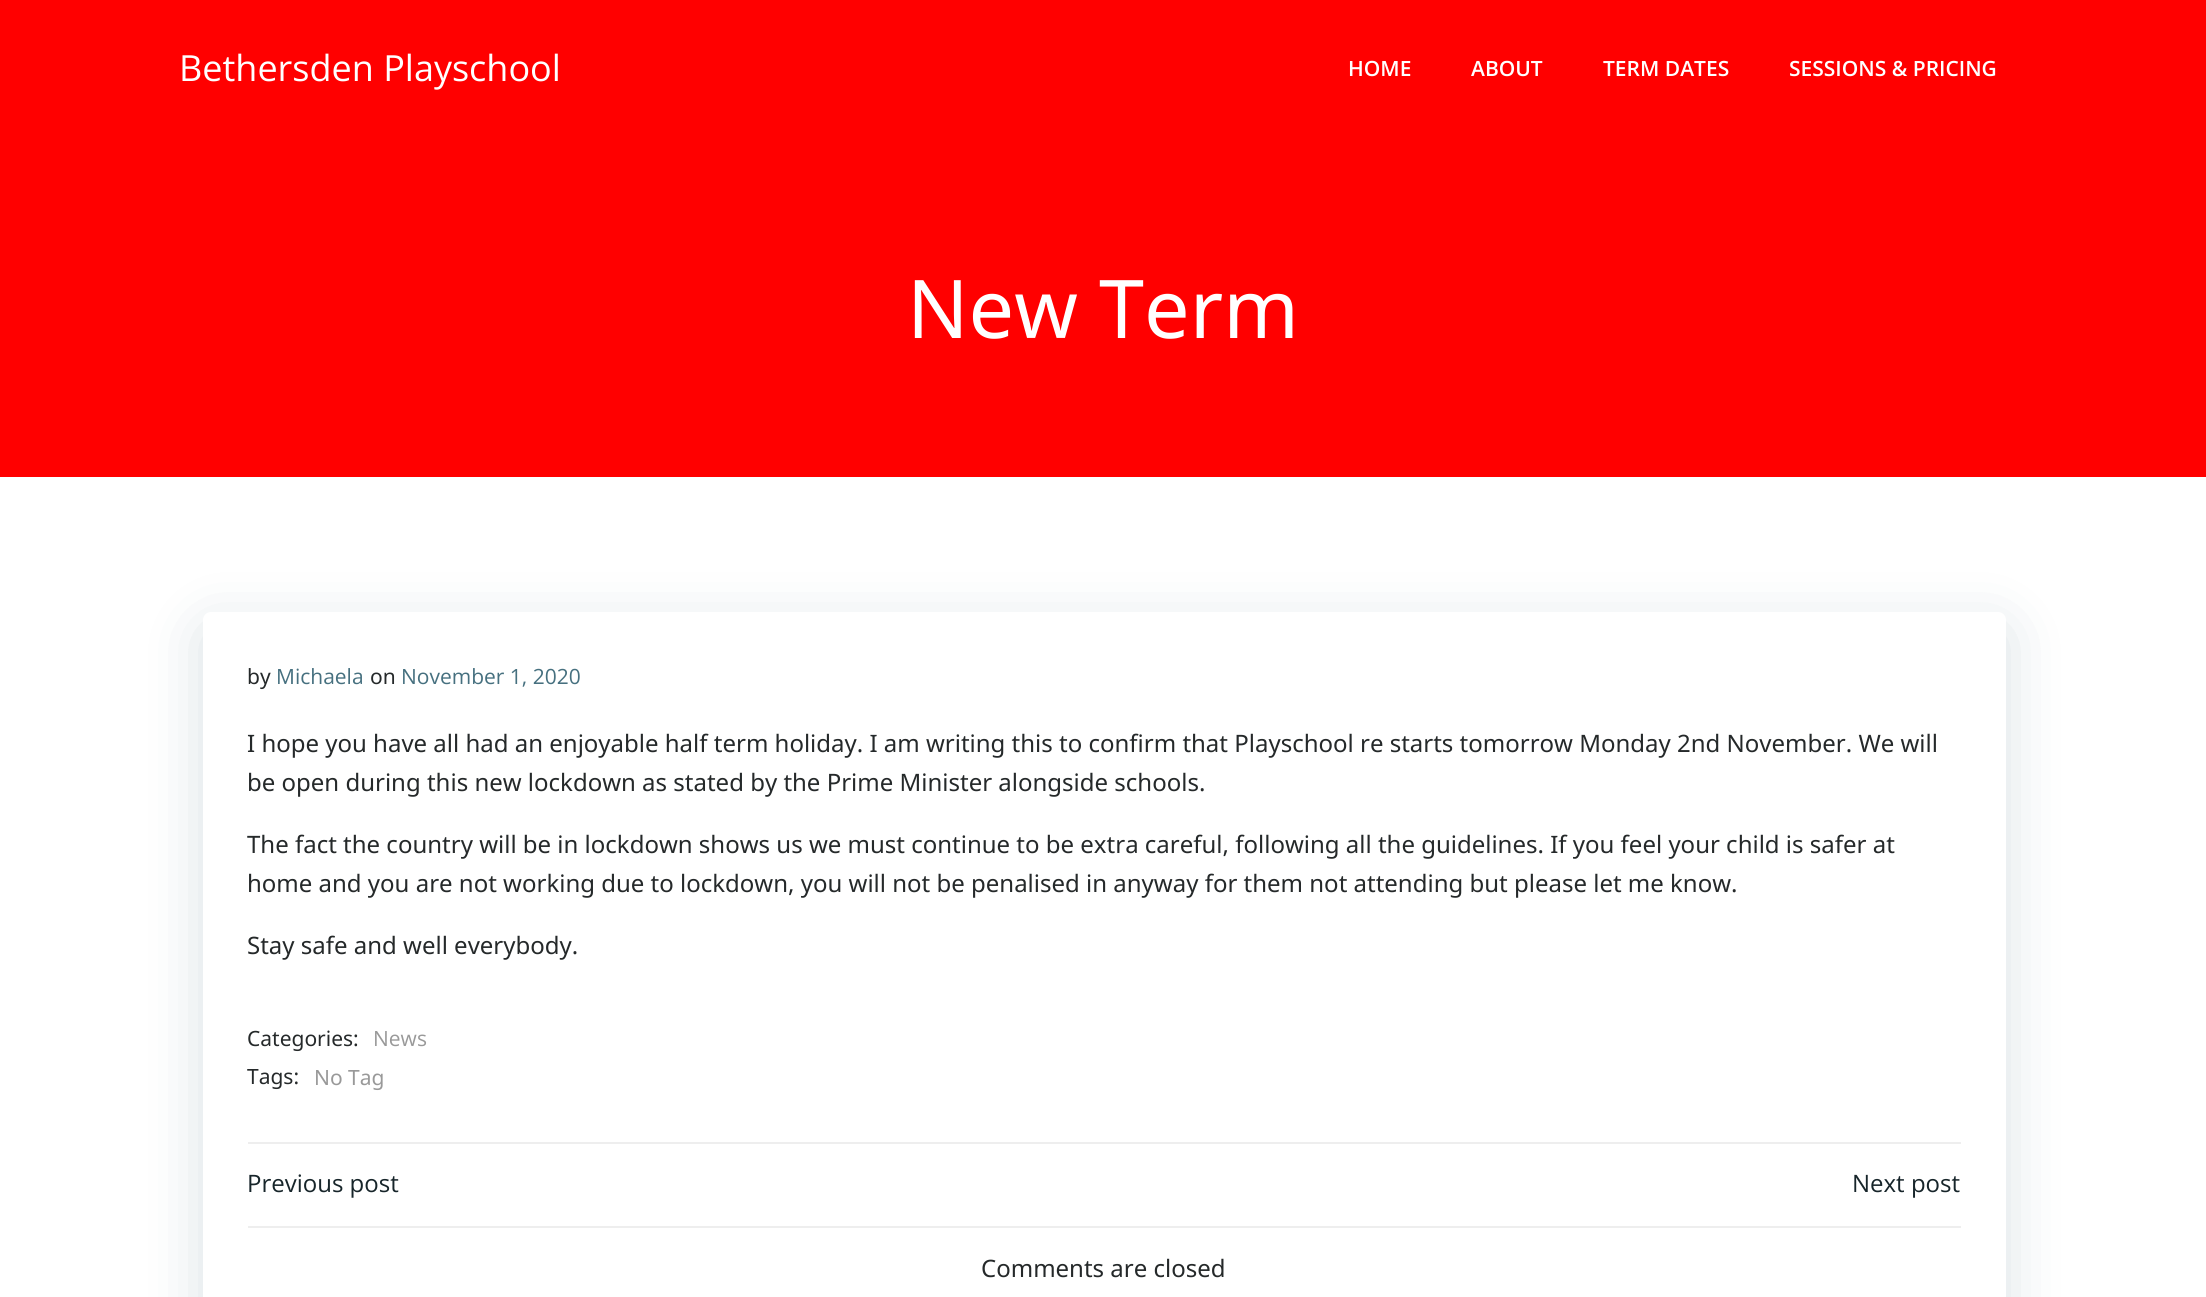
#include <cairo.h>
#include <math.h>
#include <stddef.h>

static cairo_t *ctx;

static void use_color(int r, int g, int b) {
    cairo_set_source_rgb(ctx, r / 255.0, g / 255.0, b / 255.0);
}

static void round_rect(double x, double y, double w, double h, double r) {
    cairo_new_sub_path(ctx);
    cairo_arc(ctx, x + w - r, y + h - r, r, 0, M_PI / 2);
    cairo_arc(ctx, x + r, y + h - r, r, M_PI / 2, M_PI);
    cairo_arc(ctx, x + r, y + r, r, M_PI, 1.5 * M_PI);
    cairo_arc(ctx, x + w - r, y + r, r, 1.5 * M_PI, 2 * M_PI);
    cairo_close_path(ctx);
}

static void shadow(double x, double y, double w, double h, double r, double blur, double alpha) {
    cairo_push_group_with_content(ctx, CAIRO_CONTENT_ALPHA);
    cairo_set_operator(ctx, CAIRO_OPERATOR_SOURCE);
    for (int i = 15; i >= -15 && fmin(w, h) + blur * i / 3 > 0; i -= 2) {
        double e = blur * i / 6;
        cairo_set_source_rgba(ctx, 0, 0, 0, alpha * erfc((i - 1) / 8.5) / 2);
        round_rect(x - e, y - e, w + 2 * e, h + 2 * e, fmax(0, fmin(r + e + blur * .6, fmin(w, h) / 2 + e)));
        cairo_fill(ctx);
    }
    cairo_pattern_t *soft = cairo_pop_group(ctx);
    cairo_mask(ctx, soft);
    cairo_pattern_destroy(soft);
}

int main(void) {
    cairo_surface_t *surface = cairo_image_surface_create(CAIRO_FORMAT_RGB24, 2206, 1297);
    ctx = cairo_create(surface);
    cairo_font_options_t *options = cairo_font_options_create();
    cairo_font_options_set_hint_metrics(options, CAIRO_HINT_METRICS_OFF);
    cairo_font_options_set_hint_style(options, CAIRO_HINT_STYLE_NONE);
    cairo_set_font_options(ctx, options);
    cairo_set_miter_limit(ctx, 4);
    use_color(255, 255, 255);
    cairo_paint(ctx);
    use_color(255, 0, 0);
    cairo_rectangle(ctx, 0, 0, 2206, 477);
    cairo_fill(ctx);
    cairo_select_font_face(ctx, "Open Sans", CAIRO_FONT_SLANT_NORMAL, CAIRO_FONT_WEIGHT_NORMAL);
    cairo_set_font_size(ctx, 36);
    use_color(255, 255, 255);
    cairo_move_to(ctx, 179, 81);
    cairo_show_text(ctx, "Bethersden Playschool");
    cairo_select_font_face(ctx, "Open Sans SemiBold", CAIRO_FONT_SLANT_NORMAL, CAIRO_FONT_WEIGHT_NORMAL);
    cairo_set_font_size(ctx, 21);
    cairo_move_to(ctx, 1348, 76);
    cairo_show_text(ctx, "HOME");
    cairo_move_to(ctx, 1471, 76);
    cairo_show_text(ctx, "ABOUT");
    cairo_move_to(ctx, 1603, 76);
    cairo_show_text(ctx, "TERM DATES");
    cairo_move_to(ctx, 1789, 76);
    cairo_show_text(ctx, "SESSIONS & PRICING");
    cairo_select_font_face(ctx, "Noto Sans", CAIRO_FONT_SLANT_NORMAL, CAIRO_FONT_WEIGHT_NORMAL);
    cairo_set_font_size(ctx, 81);
    cairo_move_to(ctx, 907, 338);
    cairo_show_text(ctx, "New Term");
    use_color(1, 51, 74);
    shadow(203, 627, 1803, 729, 8, 30, 0.15);
    use_color(255, 255, 255);
    round_rect(203, 612, 1803, 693, 8);
    cairo_fill(ctx);
    cairo_set_font_size(ctx, 21);
    use_color(37, 41, 42);
    cairo_move_to(ctx, 247, 684);
    cairo_show_text(ctx, "by");
    cairo_select_font_face(ctx, "Open Sans", CAIRO_FONT_SLANT_NORMAL, CAIRO_FONT_WEIGHT_NORMAL);
    use_color(70, 112, 127);
    cairo_move_to(ctx, 276, 684);
    cairo_show_text(ctx, "Michaela");
    cairo_select_font_face(ctx, "Noto Sans", CAIRO_FONT_SLANT_NORMAL, CAIRO_FONT_WEIGHT_NORMAL);
    use_color(37, 41, 42);
    cairo_move_to(ctx, 370, 684);
    cairo_show_text(ctx, "on");
    cairo_select_font_face(ctx, "Open Sans", CAIRO_FONT_SLANT_NORMAL, CAIRO_FONT_WEIGHT_NORMAL);
    use_color(70, 112, 127);
    cairo_move_to(ctx, 401, 684);
    cairo_show_text(ctx, "November 1, 2020");
    cairo_select_font_face(ctx, "Noto Sans", CAIRO_FONT_SLANT_NORMAL, CAIRO_FONT_WEIGHT_NORMAL);
    cairo_set_font_size(ctx, 24);
    use_color(37, 41, 42);
    cairo_move_to(ctx, 247, 752);
    cairo_show_text(ctx, "I hope you have all had an enjoyable half term holiday. I am writing this to confirm that Playschool re starts tomorrow Monday 2nd November. We will");
    cairo_move_to(ctx, 247, 791);
    cairo_show_text(ctx, "be open during this new lockdown as stated by the Prime Minister alongside schools.");
    cairo_move_to(ctx, 247, 853);
    cairo_show_text(ctx, "The fact the country will be in lockdown shows us we must continue to be extra careful, following all the guidelines. If you feel your child is safer at");
    cairo_move_to(ctx, 247, 892);
    cairo_show_text(ctx, "home and you are not working due to lockdown, you will not be penalised in anyway for them not attending but please let me know.");
    cairo_move_to(ctx, 247, 954);
    cairo_show_text(ctx, "Stay safe and well everybody.");
    cairo_set_font_size(ctx, 21);
    cairo_move_to(ctx, 247, 1046);
    cairo_show_text(ctx, "Categories:");
    cairo_select_font_face(ctx, "Open Sans", CAIRO_FONT_SLANT_NORMAL, CAIRO_FONT_WEIGHT_NORMAL);
    use_color(153, 153, 153);
    cairo_move_to(ctx, 373, 1046);
    cairo_show_text(ctx, "News");
    cairo_select_font_face(ctx, "Noto Sans", CAIRO_FONT_SLANT_NORMAL, CAIRO_FONT_WEIGHT_NORMAL);
    use_color(37, 41, 42);
    cairo_move_to(ctx, 247, 1084);
    cairo_show_text(ctx, "Tags:");
    use_color(153, 153, 153);
    cairo_move_to(ctx, 314, 1085);
    cairo_show_text(ctx, "No Tag");
    use_color(238, 238, 238);
    cairo_rectangle(ctx, 248, 1142, 1713, 2);
    cairo_fill(ctx);
    cairo_select_font_face(ctx, "Open Sans", CAIRO_FONT_SLANT_NORMAL, CAIRO_FONT_WEIGHT_NORMAL);
    cairo_set_font_size(ctx, 24);
    use_color(23, 37, 42);
    cairo_move_to(ctx, 247, 1192);
    cairo_show_text(ctx, "Previous post");
    cairo_move_to(ctx, 1852, 1192);
    cairo_show_text(ctx, "Next post");
    use_color(238, 238, 238);
    cairo_rectangle(ctx, 248, 1226, 1713, 2);
    cairo_fill(ctx);
    cairo_select_font_face(ctx, "Noto Sans", CAIRO_FONT_SLANT_NORMAL, CAIRO_FONT_WEIGHT_NORMAL);
    use_color(37, 41, 42);
    cairo_move_to(ctx, 981, 1277);
    cairo_show_text(ctx, "Comments are closed");
    cairo_surface_write_to_png(surface, "result.png");
    cairo_font_options_destroy(options);
    cairo_destroy(ctx);
    cairo_surface_destroy(surface);
    return 0;
}
